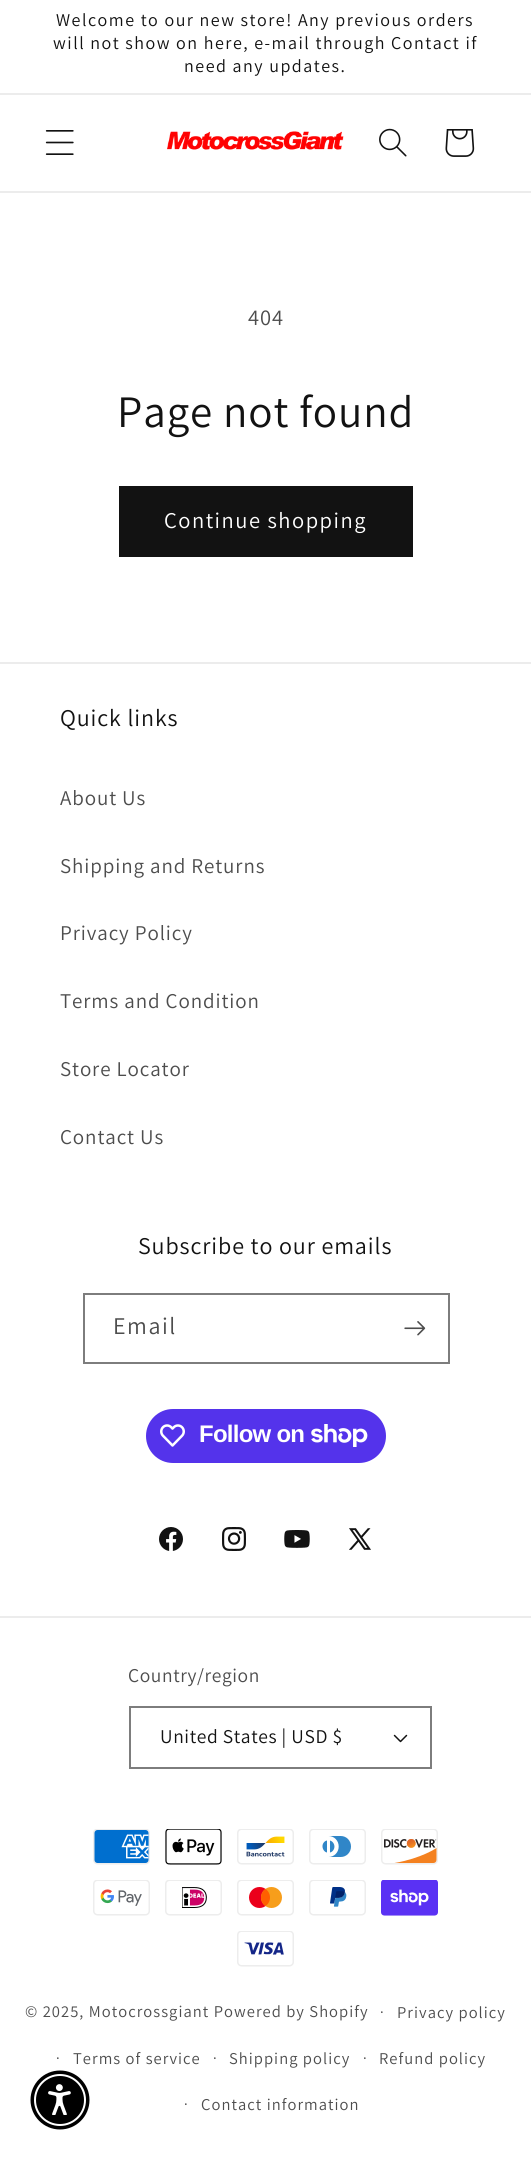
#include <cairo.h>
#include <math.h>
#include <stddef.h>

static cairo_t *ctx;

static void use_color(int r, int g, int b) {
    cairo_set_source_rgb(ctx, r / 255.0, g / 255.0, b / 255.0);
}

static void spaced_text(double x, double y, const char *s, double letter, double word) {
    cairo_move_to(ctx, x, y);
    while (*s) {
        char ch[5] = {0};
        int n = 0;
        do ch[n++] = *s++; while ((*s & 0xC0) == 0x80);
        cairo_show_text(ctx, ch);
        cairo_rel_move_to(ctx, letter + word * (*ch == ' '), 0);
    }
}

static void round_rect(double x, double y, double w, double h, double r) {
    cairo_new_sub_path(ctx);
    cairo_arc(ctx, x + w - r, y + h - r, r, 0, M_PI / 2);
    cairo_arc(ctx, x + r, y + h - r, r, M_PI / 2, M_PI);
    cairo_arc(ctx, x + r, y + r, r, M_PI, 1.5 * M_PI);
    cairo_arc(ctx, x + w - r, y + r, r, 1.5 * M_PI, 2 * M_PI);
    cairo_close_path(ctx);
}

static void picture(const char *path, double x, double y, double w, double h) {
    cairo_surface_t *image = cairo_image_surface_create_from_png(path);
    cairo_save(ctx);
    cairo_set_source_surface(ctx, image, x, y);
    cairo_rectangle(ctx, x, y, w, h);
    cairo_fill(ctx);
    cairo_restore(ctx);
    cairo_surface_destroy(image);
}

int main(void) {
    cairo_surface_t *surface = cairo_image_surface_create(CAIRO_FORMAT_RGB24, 531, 2159);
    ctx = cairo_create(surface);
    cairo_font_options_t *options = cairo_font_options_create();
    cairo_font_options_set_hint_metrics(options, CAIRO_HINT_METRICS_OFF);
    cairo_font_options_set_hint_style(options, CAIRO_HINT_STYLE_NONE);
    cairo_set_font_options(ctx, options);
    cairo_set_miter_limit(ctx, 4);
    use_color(255, 255, 255);
    cairo_paint(ctx);
    use_color(236, 236, 236);
    cairo_rectangle(ctx, 0, 93, 531, 2);
    cairo_fill(ctx);
    cairo_select_font_face(ctx, "Assistant", CAIRO_FONT_SLANT_NORMAL, CAIRO_FONT_WEIGHT_NORMAL);
    cairo_set_font_size(ctx, 18);
    use_color(18, 18, 18);
    spaced_text(56, 26, "Welcome to our new store! Any previous orders", 1.5, 0);
    spaced_text(53, 49, "will not show on here, e-mail through Contact if", 1.5, 0);
    spaced_text(184, 72, "need any updates.", 1.5, 0);
    use_color(236, 236, 236);
    cairo_rectangle(ctx, 0, 191, 531, 2);
    cairo_fill(ctx);
    picture("img1.png", 45, 130, 29, 25);
    picture("img2.png", 167, 131, 177, 19);
    picture("img3.png", 379, 128, 28, 29);
    picture("img4.png", 445, 129, 30, 28);
    cairo_set_font_size(ctx, 22.5);
    use_color(77, 77, 77);
    spaced_text(248, 325, "404", 0.9, 0);
    cairo_set_font_size(ctx, 45);
    use_color(18, 18, 18);
    spaced_text(117, 427, "Page not found", 0.9, 0);
    cairo_rectangle(ctx, 119, 486, 294, 71);
    cairo_fill(ctx);
    cairo_set_font_size(ctx, 22.5);
    use_color(255, 255, 255);
    spaced_text(164, 528, "Continue shopping", 1.5, 0);
    use_color(236, 236, 236);
    cairo_rectangle(ctx, 0, 662, 531, 2);
    cairo_fill(ctx);
    cairo_set_font_size(ctx, 24);
    use_color(18, 18, 18);
    spaced_text(60, 726, "Quick links", 0.9, 0);
    cairo_set_font_size(ctx, 21);
    use_color(77, 77, 77);
    spaced_text(60, 805, "About Us", 0.9, 0);
    spaced_text(60, 873, "Shipping and Returns", 0.9, 0);
    spaced_text(60, 940, "Privacy Policy", 0.9, 0);
    spaced_text(60, 1008, "Terms and Condition", 0.9, 0);
    spaced_text(60, 1076, "Store Locator", 0.9, 0);
    spaced_text(60, 1144, "Contact Us", 0.9, 0);
    cairo_set_font_size(ctx, 24);
    use_color(18, 18, 18);
    spaced_text(138, 1254, "Subscribe to our emails", 0.9, 0);
    cairo_rectangle(ctx, 84, 1294, 365, 69);
    use_color(125, 125, 125);
    cairo_stroke(ctx);
    use_color(77, 77, 77);
    spaced_text(113, 1334, "Email", 1.5, 0);
    picture("img5.png", 404, 1321, 22, 15);
    use_color(84, 51, 235);
    round_rect(146, 1409, 240, 54, 27);
    cairo_fill(ctx);
    picture("img6.png", 160, 1424, 25, 23);
    cairo_select_font_face(ctx, "Liberation Sans", CAIRO_FONT_SLANT_NORMAL, CAIRO_FONT_WEIGHT_BOLD);
    use_color(255, 255, 255);
    spaced_text(199, 1442, "Follow on", -0.75, 0);
    picture("img7.png", 311, 1424, 57, 23);
    picture("img8.png", 159, 1527, 24, 24);
    picture("img9.png", 222, 1527, 24, 24);
    picture("img10.png", 284, 1530, 26, 18);
    picture("img11.png", 349, 1528, 22, 22);
    use_color(236, 236, 236);
    cairo_rectangle(ctx, 0, 1616, 531, 2);
    cairo_fill(ctx);
    cairo_select_font_face(ctx, "Assistant", CAIRO_FONT_SLANT_NORMAL, CAIRO_FONT_WEIGHT_NORMAL);
    cairo_set_font_size(ctx, 19.5);
    use_color(77, 77, 77);
    spaced_text(128, 1682, "Country/region", 0.6, 0);
    picture("img12.png", 393, 1734, 15, 9);
    cairo_rectangle(ctx, 130, 1707, 301, 61);
    use_color(125, 125, 125);
    cairo_stroke(ctx);
    use_color(18, 18, 18);
    spaced_text(160, 1743, "United States | USD $", 0.6, 0);
    picture("img13.png", 93, 1829, 57, 36);
    picture("img14.png", 165, 1829, 57, 36);
    picture("img15.png", 237, 1829, 57, 36);
    picture("img16.png", 309, 1829, 57, 36);
    picture("img17.png", 381, 1829, 57, 36);
    picture("img18.png", 93, 1880, 57, 36);
    picture("img19.png", 165, 1880, 57, 36);
    picture("img20.png", 237, 1880, 57, 36);
    picture("img21.png", 309, 1880, 57, 36);
    picture("img22.png", 381, 1880, 57, 36);
    picture("img23.png", 237, 1931, 57, 36);
    cairo_set_font_size(ctx, 16.5);
    use_color(77, 77, 77);
    spaced_text(25, 2017, "© 2025, Motocrossgiant Powered by Shopify", 1.05, 0);
    cairo_set_font_size(ctx, 15);
    spaced_text(380, 2017, "·", 1.05, 0);
    cairo_set_font_size(ctx, 16.5);
    spaced_text(397, 2018, "Privacy policy", 1.05, 0);
    cairo_set_font_size(ctx, 15);
    spaced_text(56, 2063, "·", 1.05, 0);
    cairo_set_font_size(ctx, 16.5);
    spaced_text(73, 2064, "Terms of service", 1.05, 0);
    cairo_set_font_size(ctx, 15);
    spaced_text(213, 2063, "·", 1.05, 0);
    cairo_set_font_size(ctx, 16.5);
    spaced_text(229, 2064, "Shipping policy", 1.05, 0);
    cairo_set_font_size(ctx, 15);
    spaced_text(363, 2063, "·", 1.05, 0);
    cairo_set_font_size(ctx, 16.5);
    spaced_text(379, 2064, "Refund policy", 1.05, 0);
    cairo_set_font_size(ctx, 15);
    spaced_text(184, 2109, "·", 1.05, 0);
    cairo_set_font_size(ctx, 16.5);
    spaced_text(201, 2110, "Contact information", 1.05, 0);
    use_color(0, 0, 0);
    cairo_new_path(ctx);
    cairo_arc(ctx, 60, 2100, 29.5, 0, 2 * M_PI);
    cairo_fill(ctx);
    use_color(255, 255, 255);
    cairo_arc(ctx, 60, 2100, 26, 0, 2 * M_PI);
    cairo_fill(ctx);
    use_color(0, 0, 0);
    cairo_arc(ctx, 60, 2100, 24, 0, 2 * M_PI);
    cairo_fill(ctx);
    picture("img24.png", 48, 2084, 23, 31);
    cairo_surface_write_to_png(surface, "result.png");
    cairo_font_options_destroy(options);
    cairo_destroy(ctx);
    cairo_surface_destroy(surface);
    return 0;
}
